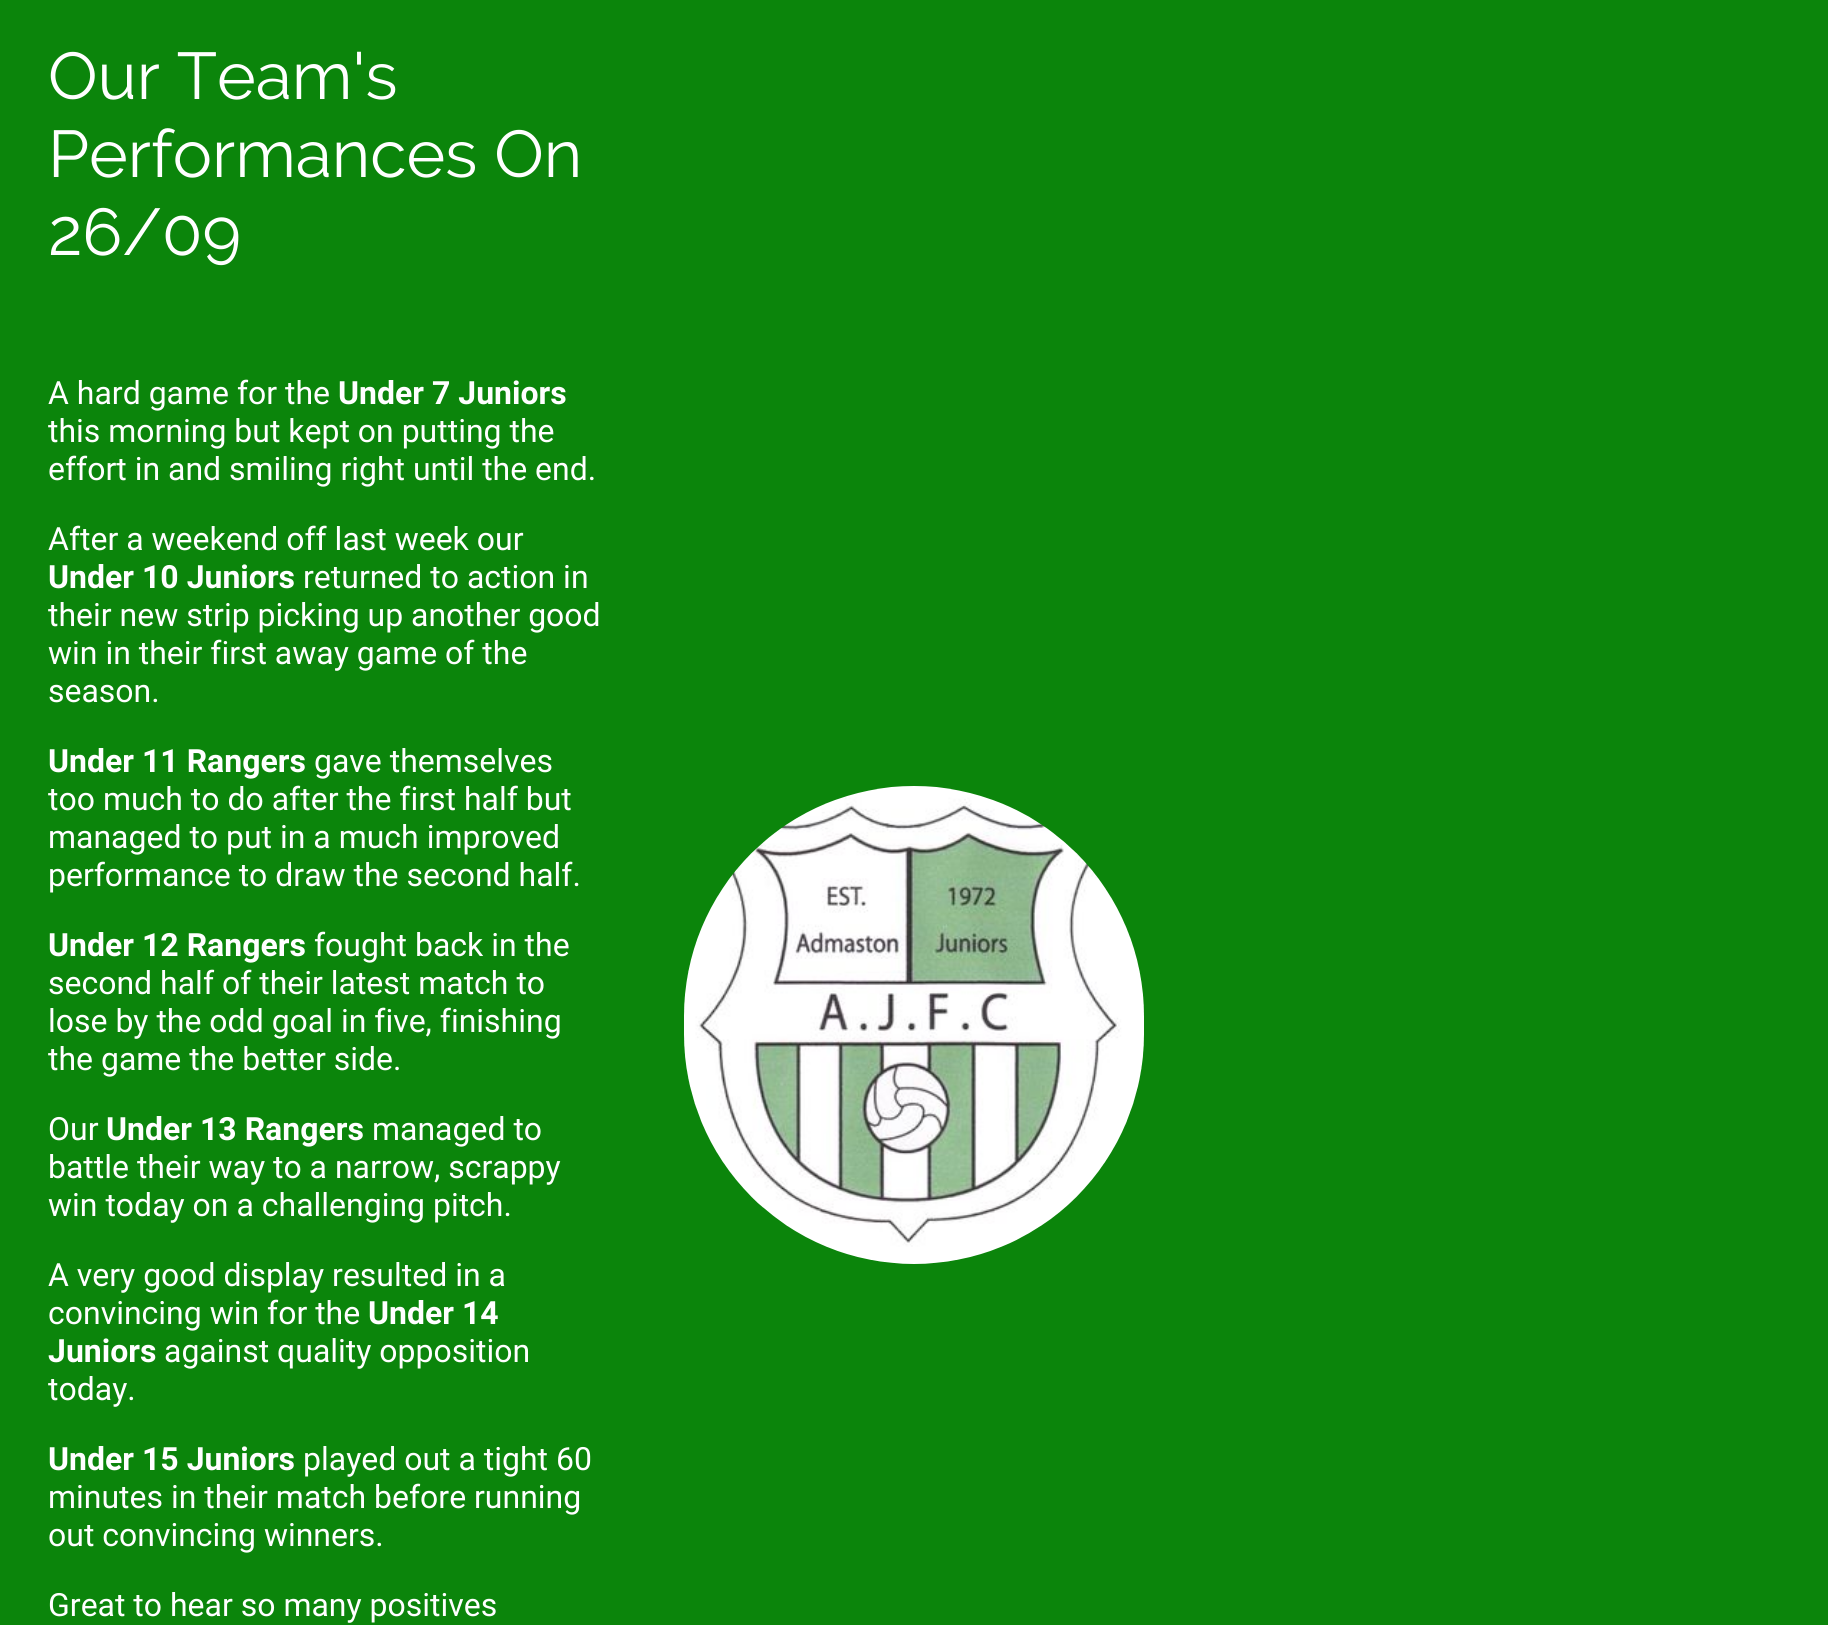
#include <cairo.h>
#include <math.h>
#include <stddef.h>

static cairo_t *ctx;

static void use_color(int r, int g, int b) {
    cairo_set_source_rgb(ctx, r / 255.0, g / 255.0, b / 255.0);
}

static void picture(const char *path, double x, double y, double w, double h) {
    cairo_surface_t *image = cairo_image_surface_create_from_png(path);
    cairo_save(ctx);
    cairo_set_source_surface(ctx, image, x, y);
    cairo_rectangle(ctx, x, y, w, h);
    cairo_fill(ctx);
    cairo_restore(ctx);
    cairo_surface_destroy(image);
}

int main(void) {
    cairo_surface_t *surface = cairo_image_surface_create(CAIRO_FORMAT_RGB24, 1828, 1625);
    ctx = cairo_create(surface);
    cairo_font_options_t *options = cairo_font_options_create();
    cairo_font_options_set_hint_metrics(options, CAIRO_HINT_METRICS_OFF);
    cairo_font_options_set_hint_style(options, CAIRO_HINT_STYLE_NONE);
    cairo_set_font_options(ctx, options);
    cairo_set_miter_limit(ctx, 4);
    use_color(11, 133, 11);
    cairo_paint(ctx);
    cairo_select_font_face(ctx, "Raleway", CAIRO_FONT_SLANT_NORMAL, CAIRO_FONT_WEIGHT_NORMAL);
    cairo_set_font_size(ctx, 66);
    use_color(255, 255, 255);
    cairo_move_to(ctx, 48, 99);
    cairo_show_text(ctx, "Our Team's");
    cairo_move_to(ctx, 48, 177);
    cairo_show_text(ctx, "Performances On");
    cairo_move_to(ctx, 48, 255);
    cairo_show_text(ctx, "26/09");
    cairo_select_font_face(ctx, "Roboto", CAIRO_FONT_SLANT_NORMAL, CAIRO_FONT_WEIGHT_NORMAL);
    cairo_set_font_size(ctx, 32);
    cairo_move_to(ctx, 48, 404);
    cairo_show_text(ctx, "A hard game for the");
    cairo_select_font_face(ctx, "Roboto", CAIRO_FONT_SLANT_NORMAL, CAIRO_FONT_WEIGHT_BOLD);
    cairo_move_to(ctx, 338, 404);
    cairo_show_text(ctx, "Under 7 Juniors");
    cairo_select_font_face(ctx, "Roboto", CAIRO_FONT_SLANT_NORMAL, CAIRO_FONT_WEIGHT_NORMAL);
    cairo_move_to(ctx, 48, 442);
    cairo_show_text(ctx, "this morning but kept on putting the");
    cairo_move_to(ctx, 48, 480);
    cairo_show_text(ctx, "effort in and smiling right until the end.");
    cairo_move_to(ctx, 48, 550);
    cairo_show_text(ctx, "After a weekend off last week our");
    cairo_select_font_face(ctx, "Roboto", CAIRO_FONT_SLANT_NORMAL, CAIRO_FONT_WEIGHT_BOLD);
    cairo_move_to(ctx, 48, 588);
    cairo_show_text(ctx, "Under 10 Juniors");
    cairo_select_font_face(ctx, "Roboto", CAIRO_FONT_SLANT_NORMAL, CAIRO_FONT_WEIGHT_NORMAL);
    cairo_move_to(ctx, 303, 588);
    cairo_show_text(ctx, "returned to action in");
    cairo_move_to(ctx, 48, 626);
    cairo_show_text(ctx, "their new strip picking up another good");
    cairo_move_to(ctx, 48, 664);
    cairo_show_text(ctx, "win in their first away game of the");
    cairo_move_to(ctx, 48, 702);
    cairo_show_text(ctx, "season.");
    cairo_select_font_face(ctx, "Roboto", CAIRO_FONT_SLANT_NORMAL, CAIRO_FONT_WEIGHT_BOLD);
    cairo_move_to(ctx, 48, 772);
    cairo_show_text(ctx, "Under 11 Rangers");
    cairo_select_font_face(ctx, "Roboto", CAIRO_FONT_SLANT_NORMAL, CAIRO_FONT_WEIGHT_NORMAL);
    cairo_move_to(ctx, 314, 772);
    cairo_show_text(ctx, "gave themselves");
    cairo_move_to(ctx, 48, 810);
    cairo_show_text(ctx, "too much to do after the first half but");
    cairo_move_to(ctx, 48, 848);
    cairo_show_text(ctx, "managed to put in a much improved");
    cairo_move_to(ctx, 48, 886);
    cairo_show_text(ctx, "performance to draw the second half.");
    cairo_select_font_face(ctx, "Roboto", CAIRO_FONT_SLANT_NORMAL, CAIRO_FONT_WEIGHT_BOLD);
    cairo_move_to(ctx, 48, 956);
    cairo_show_text(ctx, "Under 12 Rangers");
    cairo_select_font_face(ctx, "Roboto", CAIRO_FONT_SLANT_NORMAL, CAIRO_FONT_WEIGHT_NORMAL);
    cairo_move_to(ctx, 314, 956);
    cairo_show_text(ctx, "fought back in the");
    cairo_move_to(ctx, 48, 994);
    cairo_show_text(ctx, "second half of their latest match to");
    cairo_move_to(ctx, 48, 1032);
    cairo_show_text(ctx, "lose by the odd goal in five, finishing");
    cairo_move_to(ctx, 48, 1070);
    cairo_show_text(ctx, "the game the better side.");
    cairo_move_to(ctx, 48, 1140);
    cairo_show_text(ctx, "Our");
    cairo_select_font_face(ctx, "Roboto", CAIRO_FONT_SLANT_NORMAL, CAIRO_FONT_WEIGHT_BOLD);
    cairo_move_to(ctx, 106, 1140);
    cairo_show_text(ctx, "Under 13 Rangers");
    cairo_select_font_face(ctx, "Roboto", CAIRO_FONT_SLANT_NORMAL, CAIRO_FONT_WEIGHT_NORMAL);
    cairo_move_to(ctx, 372, 1140);
    cairo_show_text(ctx, "managed to");
    cairo_move_to(ctx, 48, 1178);
    cairo_show_text(ctx, "battle their way to a narrow, scrappy");
    cairo_move_to(ctx, 48, 1216);
    cairo_show_text(ctx, "win today on a challenging pitch.");
    cairo_move_to(ctx, 48, 1286);
    cairo_show_text(ctx, "A very good display resulted in a");
    cairo_move_to(ctx, 48, 1324);
    cairo_show_text(ctx, "convincing win for the");
    cairo_select_font_face(ctx, "Roboto", CAIRO_FONT_SLANT_NORMAL, CAIRO_FONT_WEIGHT_BOLD);
    cairo_move_to(ctx, 368, 1324);
    cairo_show_text(ctx, "Under 14");
    cairo_move_to(ctx, 48, 1362);
    cairo_show_text(ctx, "Juniors");
    cairo_select_font_face(ctx, "Roboto", CAIRO_FONT_SLANT_NORMAL, CAIRO_FONT_WEIGHT_NORMAL);
    cairo_move_to(ctx, 164, 1362);
    cairo_show_text(ctx, "against quality opposition");
    cairo_move_to(ctx, 48, 1400);
    cairo_show_text(ctx, "today.");
    cairo_select_font_face(ctx, "Roboto", CAIRO_FONT_SLANT_NORMAL, CAIRO_FONT_WEIGHT_BOLD);
    cairo_move_to(ctx, 48, 1470);
    cairo_show_text(ctx, "Under 15 Juniors");
    cairo_select_font_face(ctx, "Roboto", CAIRO_FONT_SLANT_NORMAL, CAIRO_FONT_WEIGHT_NORMAL);
    cairo_move_to(ctx, 303, 1470);
    cairo_show_text(ctx, "played out a tight 60");
    cairo_move_to(ctx, 48, 1508);
    cairo_show_text(ctx, "minutes in their match before running");
    cairo_move_to(ctx, 48, 1546);
    cairo_show_text(ctx, "out convincing winners.");
    cairo_move_to(ctx, 48, 1616);
    cairo_show_text(ctx, "Great to hear so many positives");
    picture("img1.png", 684, 786, 460, 478);
    cairo_surface_write_to_png(surface, "result.png");
    cairo_font_options_destroy(options);
    cairo_destroy(ctx);
    cairo_surface_destroy(surface);
    return 0;
}
